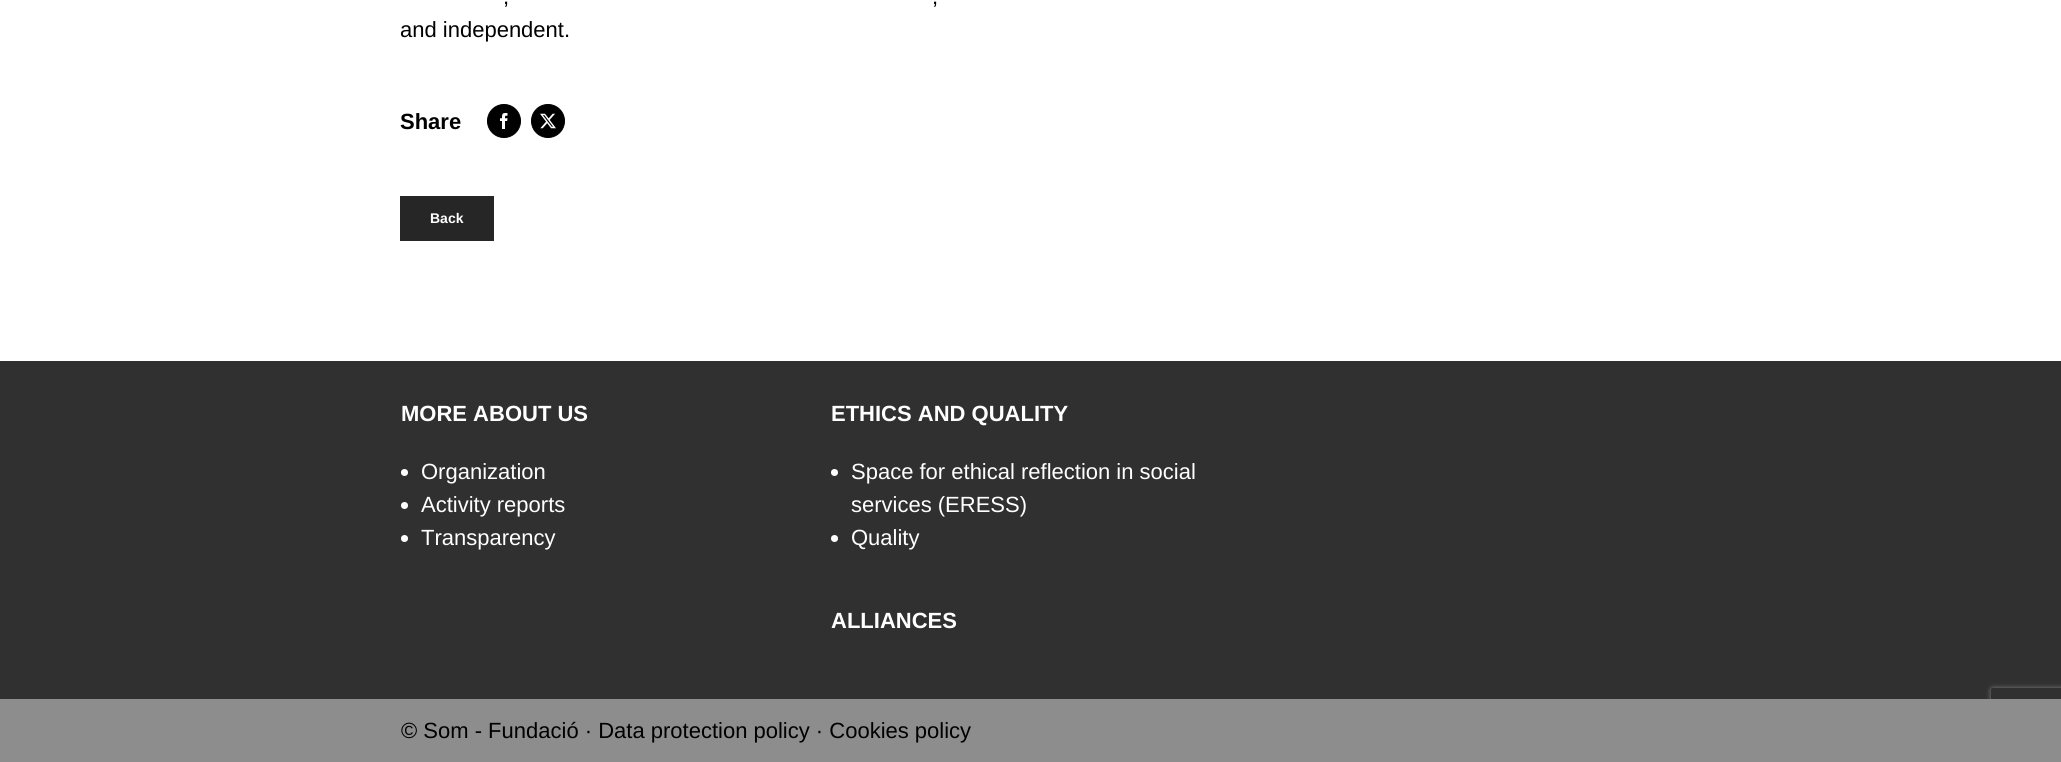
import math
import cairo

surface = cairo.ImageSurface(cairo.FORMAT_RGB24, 2061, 762)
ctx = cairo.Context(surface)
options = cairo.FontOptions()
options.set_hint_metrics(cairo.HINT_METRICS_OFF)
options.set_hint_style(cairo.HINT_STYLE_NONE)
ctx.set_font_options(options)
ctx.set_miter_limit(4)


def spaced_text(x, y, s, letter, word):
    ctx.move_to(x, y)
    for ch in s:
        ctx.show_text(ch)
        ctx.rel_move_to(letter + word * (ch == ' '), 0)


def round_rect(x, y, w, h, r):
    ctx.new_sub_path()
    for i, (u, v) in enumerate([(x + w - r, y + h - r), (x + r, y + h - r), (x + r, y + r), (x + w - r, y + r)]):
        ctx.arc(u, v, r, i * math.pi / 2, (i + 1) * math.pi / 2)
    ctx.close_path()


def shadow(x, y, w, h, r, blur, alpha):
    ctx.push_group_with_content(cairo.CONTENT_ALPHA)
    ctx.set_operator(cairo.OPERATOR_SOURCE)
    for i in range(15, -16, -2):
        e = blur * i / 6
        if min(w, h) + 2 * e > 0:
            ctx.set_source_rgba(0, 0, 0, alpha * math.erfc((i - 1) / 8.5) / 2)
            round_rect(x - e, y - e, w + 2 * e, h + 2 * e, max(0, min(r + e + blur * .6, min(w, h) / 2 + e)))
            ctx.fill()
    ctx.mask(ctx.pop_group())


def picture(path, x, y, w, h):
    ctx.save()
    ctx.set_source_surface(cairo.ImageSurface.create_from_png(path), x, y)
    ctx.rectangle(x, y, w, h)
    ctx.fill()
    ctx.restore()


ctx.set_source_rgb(1, 1, 1)
ctx.paint()
ctx.select_font_face("Liberation Sans")
ctx.set_font_size(22)
ctx.set_source_rgb(0, 0, 0)
spaced_text(503, 4, ",", 0, 1)
spaced_text(932, 4, ",", 0, 1)
ctx.move_to(400, 37)
ctx.show_text("and independent.")
ctx.select_font_face("Liberation Sans", cairo.FONT_SLANT_NORMAL, cairo.FONT_WEIGHT_BOLD)
ctx.move_to(400, 129)
ctx.show_text("Share")
ctx.new_path()
ctx.arc(504, 121, 16.5, 0, 2 * math.pi)
ctx.fill_preserve()
ctx.set_line_width(1)
ctx.stroke()
picture("img1.png", 500, 113, 8, 16)
ctx.arc(548, 121, 16.5, 0, 2 * math.pi)
ctx.fill_preserve()
ctx.stroke()
picture("img2.png", 540, 113, 16, 16)
ctx.set_source_rgb(0.149, 0.149, 0.149)
ctx.rectangle(400, 196, 94, 45)
ctx.fill()
ctx.set_font_size(14)
ctx.set_source_rgb(1, 1, 1)
ctx.move_to(430, 223)
ctx.show_text("Back")
ctx.set_source_rgb(0.188, 0.188, 0.188)
ctx.rectangle(0, 361, 2061, 338)
ctx.fill()
ctx.set_font_size(22)
ctx.set_source_rgb(1, 1, 1)
ctx.move_to(401, 421)
ctx.show_text("MORE ABOUT US")
ctx.new_path()
ctx.arc(404.5, 472.5, 3.5, 0, 2 * math.pi)
ctx.fill()
ctx.select_font_face("Liberation Sans")
ctx.move_to(421, 479)
ctx.show_text("Organization")
ctx.new_path()
ctx.arc(404.5, 505.5, 3.5, 0, 2 * math.pi)
ctx.fill()
ctx.move_to(421, 512)
ctx.show_text("Activity reports")
ctx.new_path()
ctx.arc(404.5, 538.5, 3.5, 0, 2 * math.pi)
ctx.fill()
ctx.move_to(421, 545)
ctx.show_text("Transparency")
ctx.select_font_face("Liberation Sans", cairo.FONT_SLANT_NORMAL, cairo.FONT_WEIGHT_BOLD)
ctx.move_to(831, 421)
ctx.show_text("ETHICS AND QUALITY")
ctx.new_path()
ctx.arc(834.5, 472.5, 3.5, 0, 2 * math.pi)
ctx.fill()
ctx.select_font_face("Liberation Sans")
ctx.move_to(851, 479)
ctx.show_text("Space for ethical reflection in social")
ctx.move_to(851, 512)
ctx.show_text("services (ERESS)")
ctx.new_path()
ctx.arc(834.5, 538.5, 3.5, 0, 2 * math.pi)
ctx.fill()
ctx.move_to(851, 545)
ctx.show_text("Quality")
ctx.select_font_face("Liberation Sans", cairo.FONT_SLANT_NORMAL, cairo.FONT_WEIGHT_BOLD)
ctx.move_to(831, 628)
ctx.show_text("ALLIANCES")
ctx.save()
ctx.set_fill_rule(cairo.FILL_RULE_EVEN_ODD)
ctx.new_path()
ctx.move_to(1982, 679)
ctx.line_to(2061, 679)
ctx.line_to(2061, 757)
ctx.line_to(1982, 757)
ctx.close_path()
ctx.move_to(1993, 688)
ctx.line_to(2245, 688)
ctx.curve_to(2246, 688, 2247, 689, 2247, 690)
ctx.line_to(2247, 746)
ctx.curve_to(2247, 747, 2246, 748, 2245, 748)
ctx.line_to(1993, 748)
ctx.curve_to(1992, 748, 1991, 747, 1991, 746)
ctx.line_to(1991, 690)
ctx.curve_to(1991, 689, 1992, 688, 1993, 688)
ctx.close_path()
ctx.clip()
ctx.set_source_rgb(0.502, 0.502, 0.502)
shadow(1991, 688, 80, 60, 2, 2.5, 1)
ctx.restore()
ctx.set_source_rgb(0.553, 0.553, 0.553)
ctx.rectangle(0, 699, 2061, 63)
ctx.fill()
ctx.select_font_face("Liberation Sans")
ctx.set_source_rgb(0, 0, 0)
ctx.move_to(401, 738)
ctx.show_text("© Som - Fundació · Data protection policy · Cookies policy")
surface.write_to_png("page.png")
